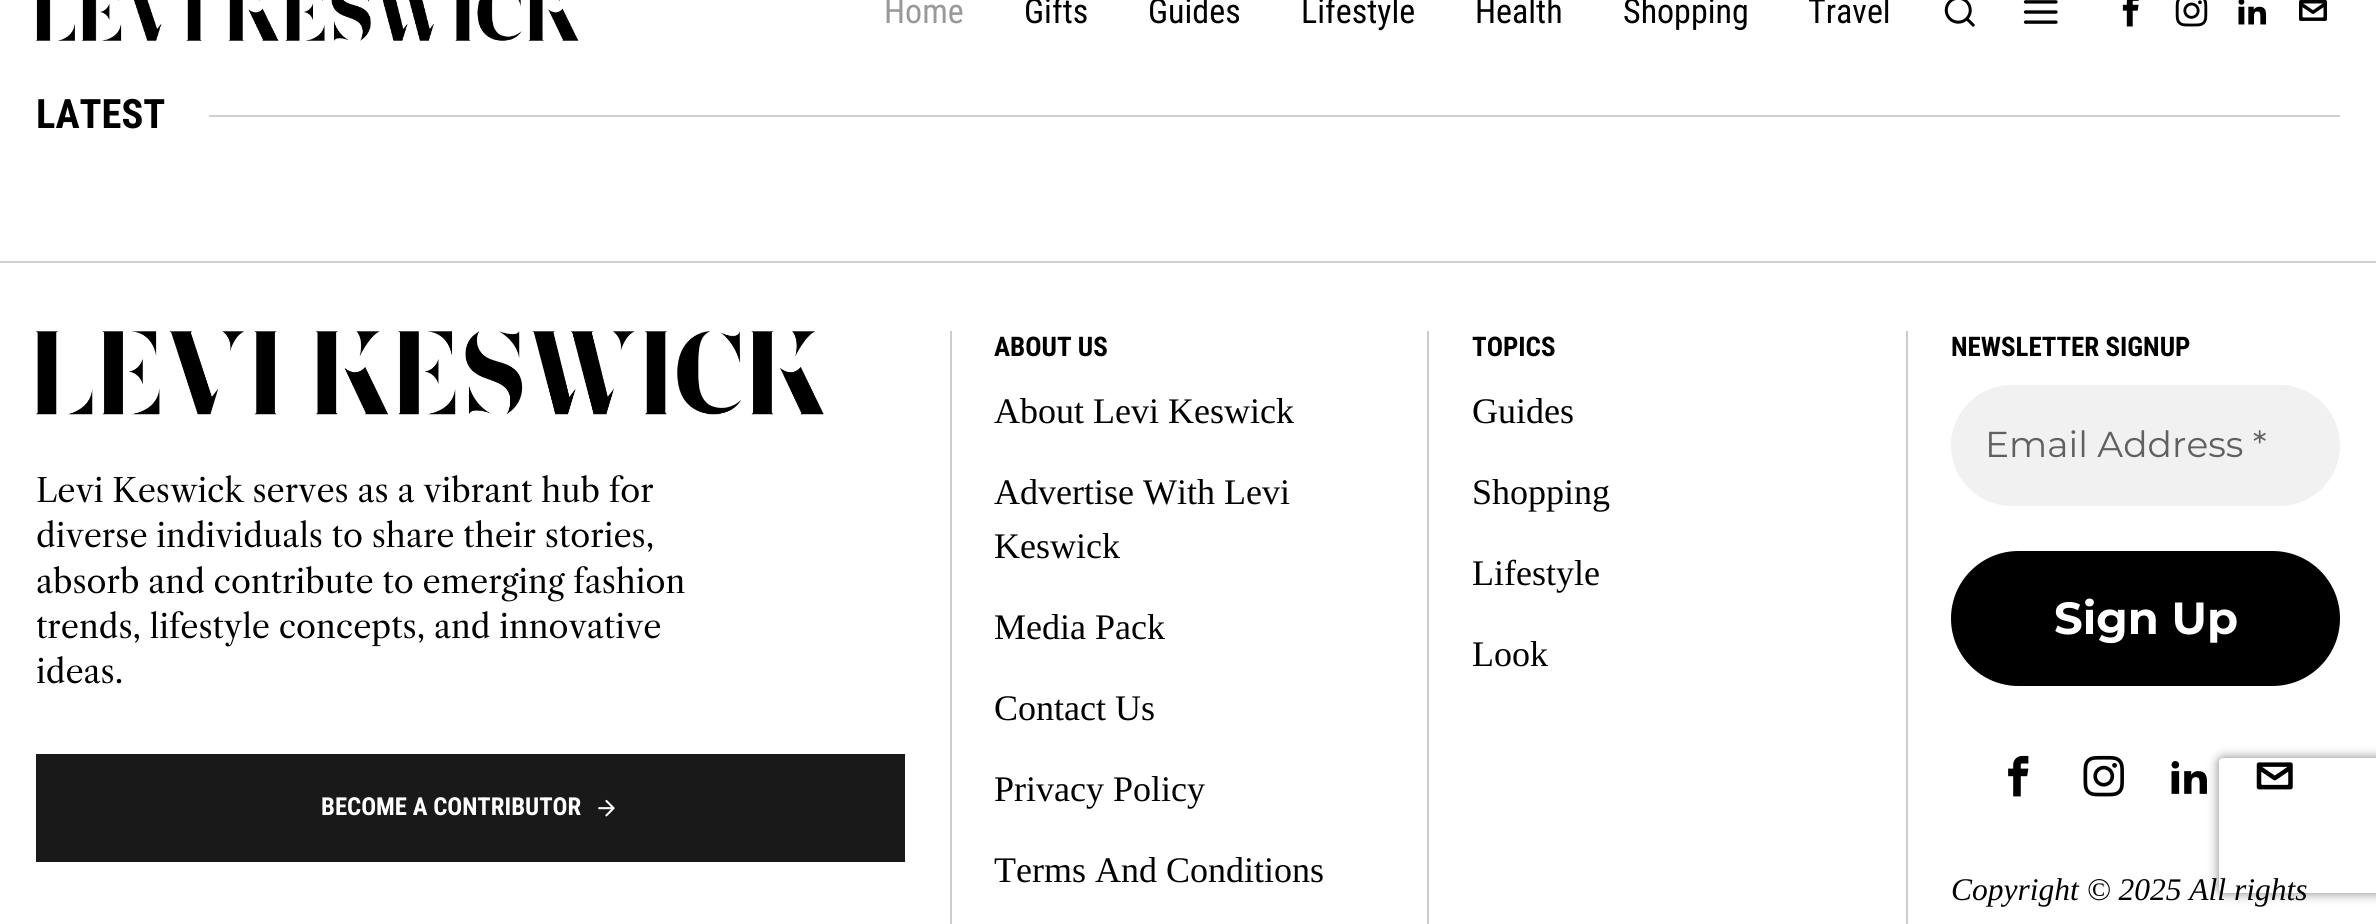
import math
import cairo

surface = cairo.ImageSurface(cairo.FORMAT_RGB24, 2376, 924)
ctx = cairo.Context(surface)
options = cairo.FontOptions()
options.set_hint_metrics(cairo.HINT_METRICS_OFF)
options.set_hint_style(cairo.HINT_STYLE_NONE)
ctx.set_font_options(options)
ctx.set_miter_limit(4)


def round_rect(x, y, w, h, r):
    ctx.new_sub_path()
    for i, (u, v) in enumerate([(x + w - r, y + h - r), (x + r, y + h - r), (x + r, y + r), (x + w - r, y + r)]):
        ctx.arc(u, v, r, i * math.pi / 2, (i + 1) * math.pi / 2)
    ctx.close_path()


def shadow(x, y, w, h, r, blur, alpha):
    ctx.push_group_with_content(cairo.CONTENT_ALPHA)
    ctx.set_operator(cairo.OPERATOR_SOURCE)
    for i in range(15, -16, -2):
        e = blur * i / 6
        if min(w, h) + 2 * e > 0:
            ctx.set_source_rgba(0, 0, 0, alpha * math.erfc((i - 1) / 8.5) / 2)
            round_rect(x - e, y - e, w + 2 * e, h + 2 * e, max(0, min(r + e + blur * .6, min(w, h) / 2 + e)))
            ctx.fill()
    ctx.mask(ctx.pop_group())


def picture(path, x, y, w, h):
    ctx.save()
    ctx.set_source_surface(cairo.ImageSurface.create_from_png(path), x, y)
    ctx.rectangle(x, y, w, h)
    ctx.fill()
    ctx.restore()


ctx.set_source_rgb(1, 1, 1)
ctx.paint()
picture("img1.png", 36, 0, 543, 41)
ctx.select_font_face("Roboto Condensed")
ctx.set_font_size(34)
ctx.set_source_rgb(0.6, 0.6, 0.6)
ctx.move_to(884, 23)
ctx.show_text("Home")
ctx.set_source_rgb(0, 0, 0)
ctx.move_to(1024, 23)
ctx.show_text("Gifts")
ctx.move_to(1148, 23)
ctx.show_text("Guides")
ctx.move_to(1301, 23)
ctx.show_text("Lifestyle")
ctx.move_to(1475, 23)
ctx.show_text("Health")
ctx.move_to(1623, 23)
ctx.show_text("Shopping")
ctx.move_to(1808, 23)
ctx.show_text("Travel")
picture("img2.png", 1944, 0, 31, 27)
picture("img3.png", 2023, 0, 35, 24)
picture("img4.png", 2122, 0, 17, 27)
picture("img5.png", 2175, 0, 33, 27)
picture("img6.png", 2238, 0, 29, 25)
picture("img7.png", 2299, 0, 28, 21)
ctx.select_font_face("Roboto Condensed", cairo.FONT_SLANT_NORMAL, cairo.FONT_WEIGHT_BOLD)
ctx.set_font_size(40.5)
ctx.move_to(36, 128)
ctx.show_text("LATEST")
ctx.set_source_rgb(0.816, 0.816, 0.816)
ctx.rectangle(209, 115, 2131, 2)
ctx.fill()
ctx.rectangle(0, 261, 2376, 2)
ctx.fill()
picture("img8.png", 36, 331, 788, 84)
ctx.select_font_face("Libre Caslon Text")
ctx.set_font_size(32.4)
ctx.set_source_rgb(0, 0, 0)
ctx.move_to(36, 502)
ctx.show_text("Levi Keswick serves as a vibrant hub for")
ctx.move_to(36, 547)
ctx.show_text("diverse individuals to share their stories,")
ctx.move_to(36, 593)
ctx.show_text("absorb and contribute to emerging fashion")
ctx.move_to(36, 638)
ctx.show_text("trends, lifestyle concepts, and innovative")
ctx.move_to(36, 683)
ctx.show_text("ideas.")
ctx.set_source_rgb(0.098, 0.098, 0.098)
ctx.rectangle(36, 754, 869, 108)
ctx.fill()
ctx.select_font_face("Roboto Condensed", cairo.FONT_SLANT_NORMAL, cairo.FONT_WEIGHT_BOLD)
ctx.set_font_size(24.75)
ctx.set_source_rgb(1, 1, 1)
ctx.move_to(321, 815)
ctx.show_text("BECOME A CONTRIBUTOR")
picture("img9.png", 598, 799, 17, 18)
ctx.set_source_rgb(0.8, 0.8, 0.8)
ctx.rectangle(950, 331, 2, 593)
ctx.fill()
ctx.set_font_size(27)
ctx.set_source_rgb(0, 0, 0)
ctx.move_to(994, 356)
ctx.show_text("ABOUT US")
ctx.select_font_face("Liberation Serif")
ctx.set_font_size(36)
ctx.move_to(994, 423)
ctx.show_text("About Levi Keswick")
ctx.move_to(994, 504)
ctx.show_text("Advertise With Levi")
ctx.move_to(994, 558)
ctx.show_text("Keswick")
ctx.move_to(994, 639)
ctx.show_text("Media Pack")
ctx.move_to(994, 720)
ctx.show_text("Contact Us")
ctx.move_to(994, 801)
ctx.show_text("Privacy Policy")
ctx.move_to(994, 882)
ctx.show_text("Terms And Conditions")
ctx.set_source_rgb(0.8, 0.8, 0.8)
ctx.rectangle(1427, 331, 2, 593)
ctx.fill()
ctx.select_font_face("Roboto Condensed", cairo.FONT_SLANT_NORMAL, cairo.FONT_WEIGHT_BOLD)
ctx.set_font_size(27)
ctx.set_source_rgb(0, 0, 0)
ctx.move_to(1472, 356)
ctx.show_text("TOPICS")
ctx.select_font_face("Liberation Serif")
ctx.set_font_size(36)
ctx.move_to(1472, 423)
ctx.show_text("Guides")
ctx.move_to(1472, 504)
ctx.show_text("Shopping")
ctx.move_to(1472, 585)
ctx.show_text("Lifestyle")
ctx.move_to(1472, 666)
ctx.show_text("Look")
ctx.set_source_rgb(0.8, 0.8, 0.8)
ctx.rectangle(1906, 331, 2, 593)
ctx.fill()
ctx.select_font_face("Roboto Condensed", cairo.FONT_SLANT_NORMAL, cairo.FONT_WEIGHT_BOLD)
ctx.set_font_size(27)
ctx.set_source_rgb(0, 0, 0)
ctx.move_to(1951, 356)
ctx.show_text("NEWSLETTER SIGNUP")
ctx.set_source_rgb(0.945, 0.945, 0.945)
round_rect(1951, 385, 389, 121, 60.5)
ctx.fill()
ctx.select_font_face("Montserrat")
ctx.set_font_size(36)
ctx.set_source_rgb(0.376, 0.376, 0.376)
ctx.move_to(1985, 457)
ctx.show_text("Email Address *")
ctx.set_source_rgb(0, 0, 0)
round_rect(1951, 551, 389, 135, 67.5)
ctx.fill()
ctx.select_font_face("Montserrat", cairo.FONT_SLANT_NORMAL, cairo.FONT_WEIGHT_BOLD)
ctx.set_font_size(45)
ctx.set_source_rgb(1, 1, 1)
ctx.move_to(2054, 634)
ctx.show_text("Sign Up")
ctx.save()
ctx.set_fill_rule(cairo.FILL_RULE_EVEN_ODD)
ctx.new_path()
ctx.move_to(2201, 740)
ctx.line_to(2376, 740)
ctx.line_to(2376, 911)
ctx.line_to(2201, 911)
ctx.close_path()
ctx.move_to(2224, 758)
ctx.line_to(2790, 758)
ctx.curve_to(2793, 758, 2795, 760, 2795, 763)
ctx.line_to(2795, 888)
ctx.curve_to(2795, 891, 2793, 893, 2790, 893)
ctx.line_to(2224, 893)
ctx.curve_to(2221, 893, 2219, 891, 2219, 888)
ctx.line_to(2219, 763)
ctx.curve_to(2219, 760, 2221, 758, 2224, 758)
ctx.close_path()
ctx.clip()
ctx.set_source_rgb(0.502, 0.502, 0.502)
shadow(2219, 758, 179, 135, 5, 5.5, 1)
ctx.restore()
picture("img10.png", 2008, 755, 21, 42)
picture("img11.png", 2083, 755, 41, 42)
picture("img12.png", 2171, 761, 36, 33)
picture("img13.png", 2256, 762, 37, 28)
ctx.select_font_face("Liberation Serif", cairo.FONT_SLANT_ITALIC)
ctx.set_font_size(31.5)
ctx.set_source_rgb(0, 0, 0)
ctx.move_to(1951, 900)
ctx.show_text("Copyright © 2025 All rights")
surface.write_to_png("page.png")
